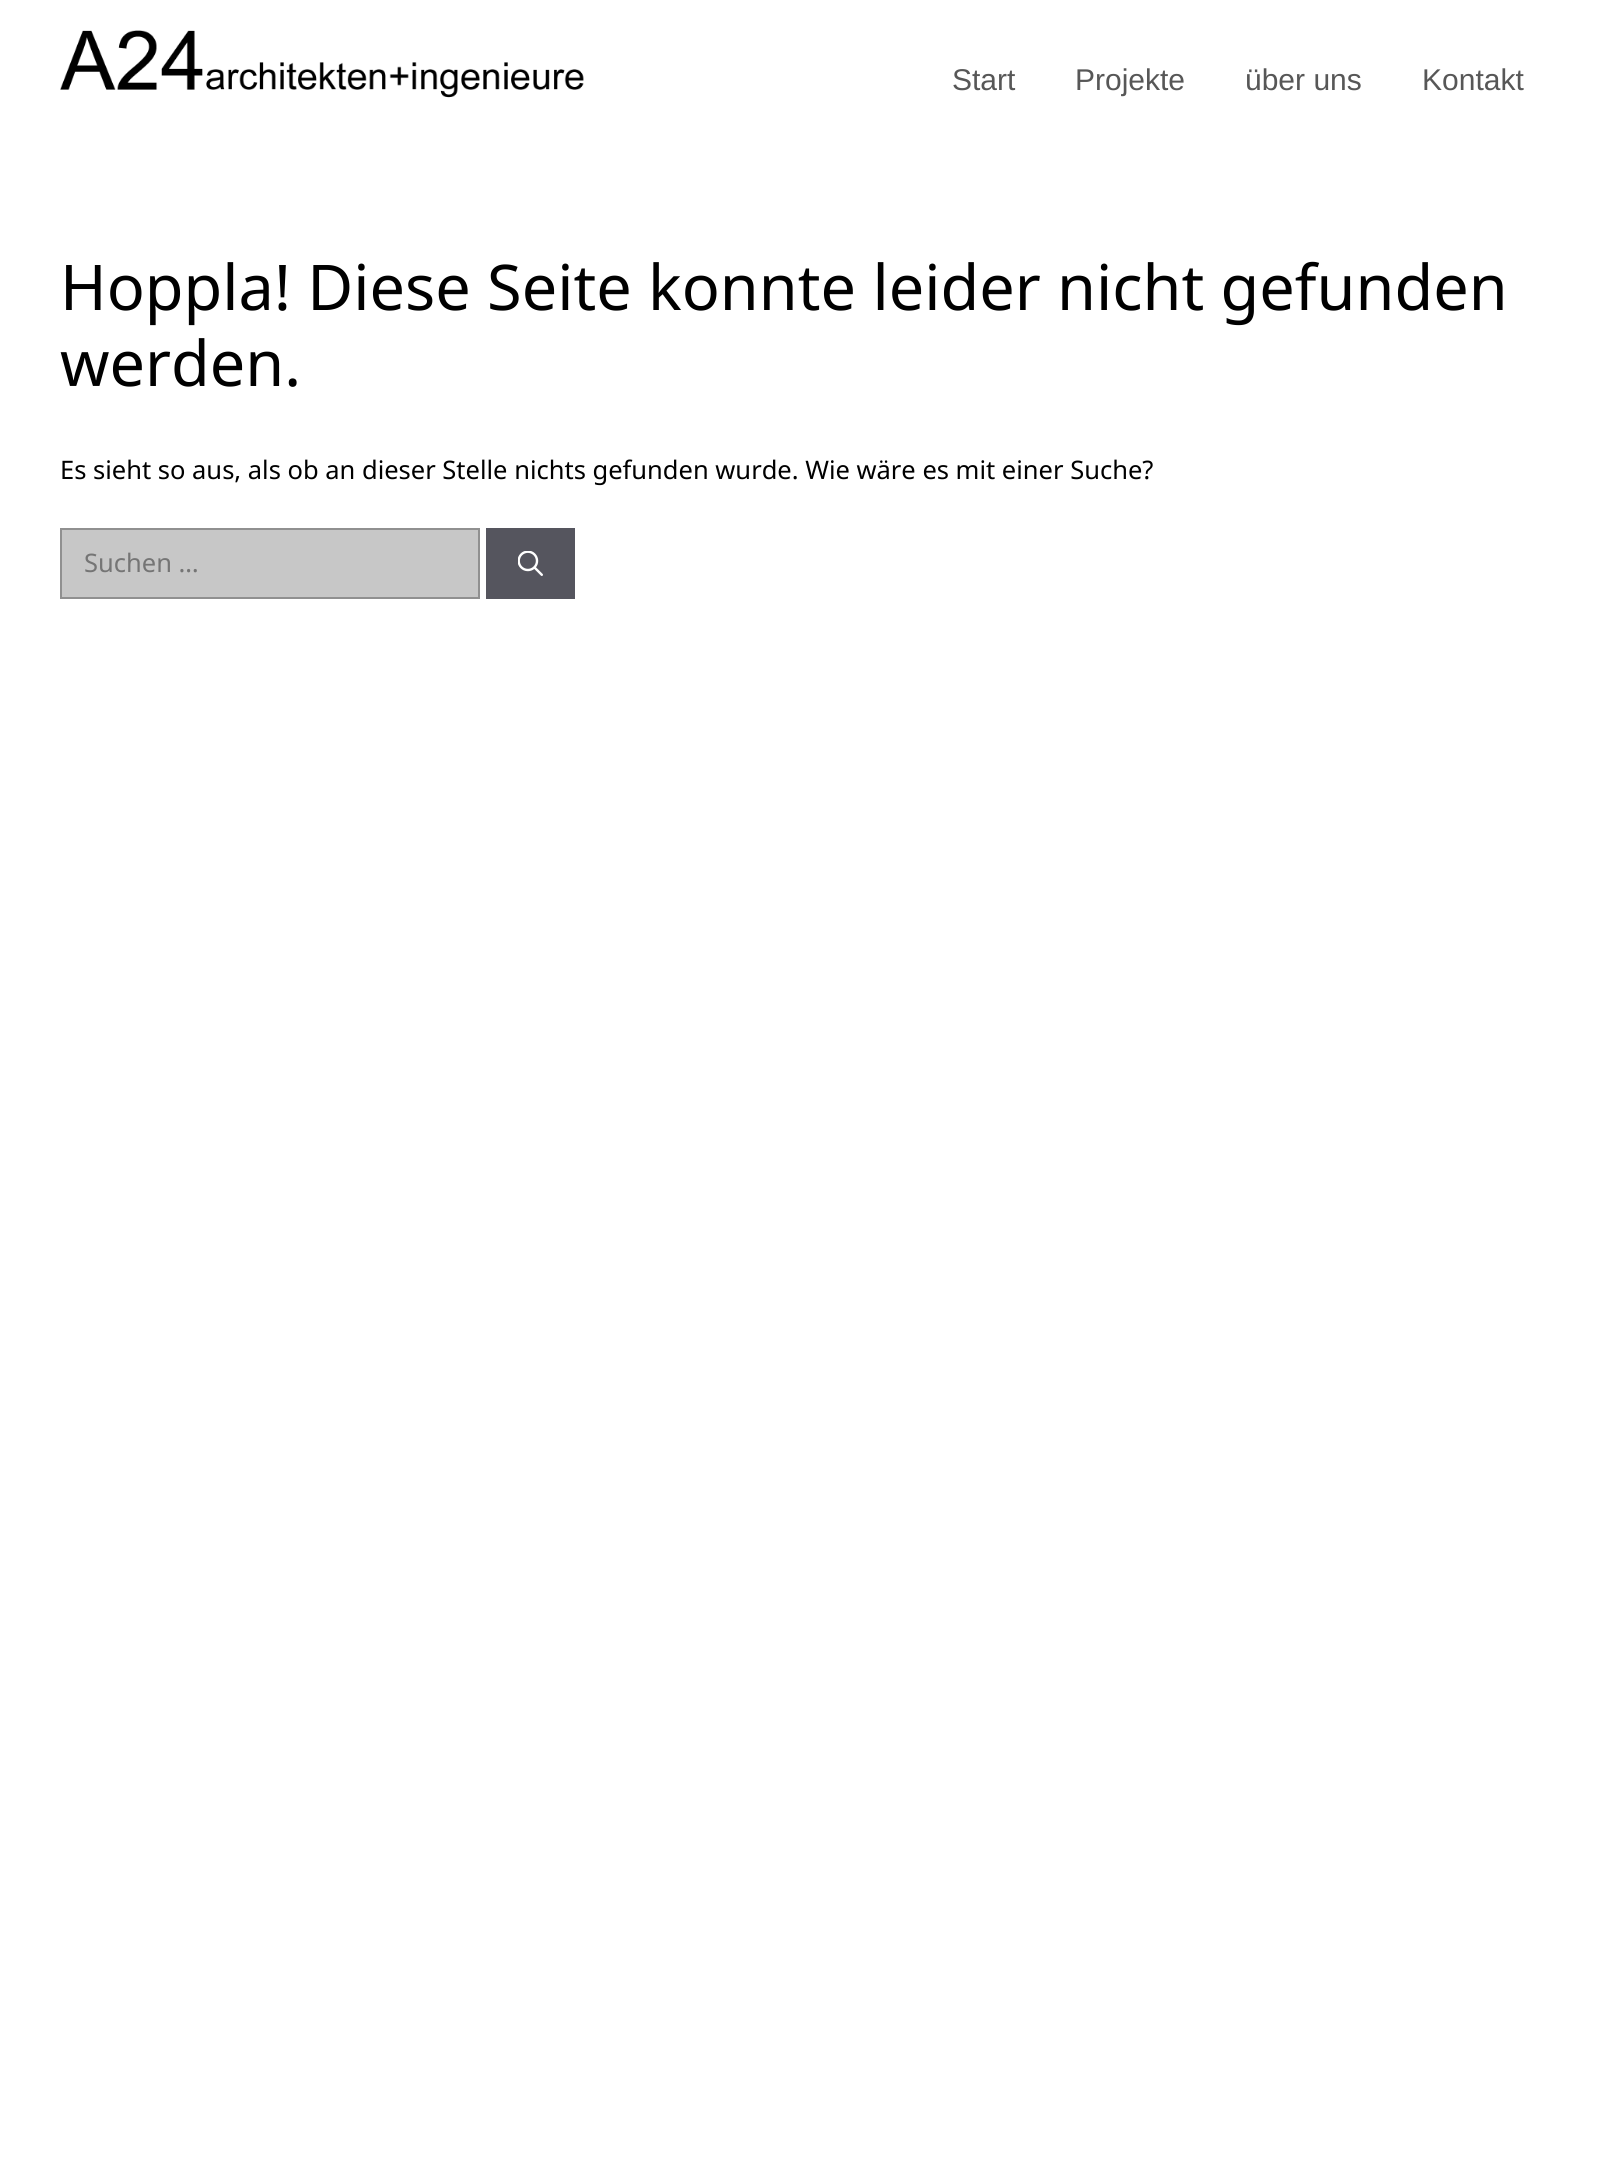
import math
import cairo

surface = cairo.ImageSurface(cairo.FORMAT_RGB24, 1613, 2174)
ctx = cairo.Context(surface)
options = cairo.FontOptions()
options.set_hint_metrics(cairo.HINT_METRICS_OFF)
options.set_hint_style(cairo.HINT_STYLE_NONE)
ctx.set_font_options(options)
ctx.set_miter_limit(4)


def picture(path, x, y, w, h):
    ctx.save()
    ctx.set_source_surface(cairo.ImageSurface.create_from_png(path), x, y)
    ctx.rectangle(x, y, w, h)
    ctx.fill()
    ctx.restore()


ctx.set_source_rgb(1, 1, 1)
ctx.paint()
picture("img1.png", 60, 30, 524, 68)
ctx.select_font_face("Liberation Sans")
ctx.set_font_size(30)
ctx.set_source_rgb(0.341, 0.341, 0.341)
ctx.move_to(952, 90)
ctx.show_text("Start")
ctx.move_to(1075, 90)
ctx.show_text("Projekte")
ctx.move_to(1245, 90)
ctx.show_text("über uns")
ctx.move_to(1422, 90)
ctx.show_text("Kontakt")
ctx.select_font_face("Noto Sans")
ctx.set_font_size(63)
ctx.set_source_rgb(0, 0, 0)
ctx.move_to(60, 310)
ctx.show_text("Hoppla! Diese Seite konnte leider nicht gefunden")
ctx.move_to(60, 386)
ctx.show_text("werden.")
ctx.set_font_size(25.5)
ctx.move_to(60, 479)
ctx.show_text("Es sieht so aus, als ob an dieser Stelle nichts gefunden wurde. Wie wäre es mit einer Suche?")
ctx.set_source_rgb(0.78, 0.78, 0.78)
ctx.rectangle(61, 529, 418, 69)
ctx.fill_preserve()
ctx.set_source_rgb(0.565, 0.565, 0.565)
ctx.stroke()
ctx.set_source_rgb(0.459, 0.459, 0.459)
ctx.move_to(84, 572)
ctx.show_text("Suchen …")
ctx.set_source_rgb(0.333, 0.333, 0.369)
ctx.rectangle(486, 528, 89, 71)
ctx.fill()
picture("img2.png", 518, 551, 25, 25)
surface.write_to_png("page.png")
